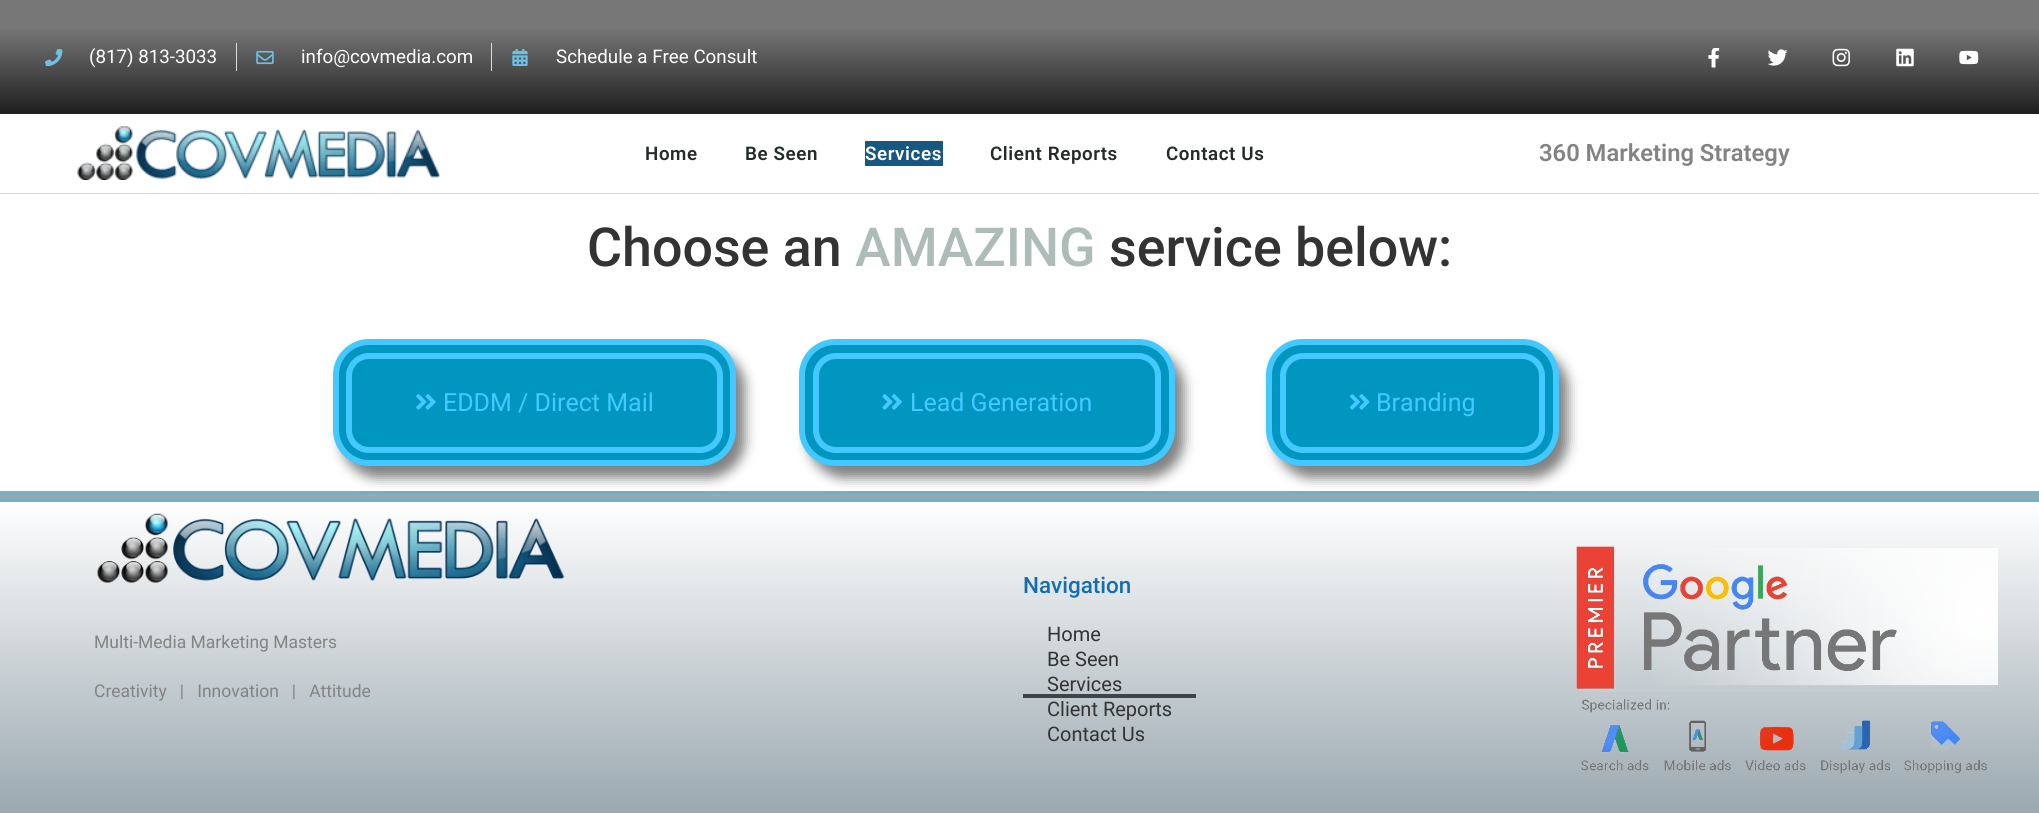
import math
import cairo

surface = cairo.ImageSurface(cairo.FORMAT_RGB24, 2039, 813)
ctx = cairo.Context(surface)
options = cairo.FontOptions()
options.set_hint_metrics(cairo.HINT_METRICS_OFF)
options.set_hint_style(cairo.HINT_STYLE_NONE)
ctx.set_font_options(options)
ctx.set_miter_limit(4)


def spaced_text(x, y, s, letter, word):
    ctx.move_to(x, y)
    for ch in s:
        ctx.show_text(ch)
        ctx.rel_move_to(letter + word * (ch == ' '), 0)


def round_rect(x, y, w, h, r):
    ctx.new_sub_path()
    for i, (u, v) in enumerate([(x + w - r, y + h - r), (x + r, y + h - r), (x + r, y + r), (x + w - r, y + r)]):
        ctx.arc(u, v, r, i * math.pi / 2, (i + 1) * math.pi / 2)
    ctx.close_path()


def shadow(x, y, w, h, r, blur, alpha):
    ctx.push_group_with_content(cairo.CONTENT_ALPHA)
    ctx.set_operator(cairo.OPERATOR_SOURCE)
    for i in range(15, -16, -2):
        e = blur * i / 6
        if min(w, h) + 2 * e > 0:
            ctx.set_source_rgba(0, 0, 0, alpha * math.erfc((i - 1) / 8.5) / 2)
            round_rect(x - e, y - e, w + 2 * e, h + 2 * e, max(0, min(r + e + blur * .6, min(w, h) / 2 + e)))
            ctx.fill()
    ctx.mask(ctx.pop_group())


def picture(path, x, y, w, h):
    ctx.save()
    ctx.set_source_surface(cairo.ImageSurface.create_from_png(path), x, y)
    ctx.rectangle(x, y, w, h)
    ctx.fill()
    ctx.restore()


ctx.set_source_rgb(1, 1, 1)
ctx.paint()
gradient = cairo.LinearGradient(1020, 0, 1020, 114)
gradient.add_color_stop_rgba(0.24, 0.467, 0.467, 0.467, 1)
gradient.add_color_stop_rgba(1, 0.118, 0.118, 0.118, 1)
ctx.set_source(gradient)
ctx.rectangle(0, 0, 2039, 114)
ctx.fill()
picture("img1.png", 45, 49, 18, 17)
ctx.select_font_face("Roboto")
ctx.set_font_size(18.75)
ctx.set_source_rgb(1, 1, 1)
ctx.move_to(89, 63)
ctx.show_text("(817) 813-3033")
ctx.set_source_rgb(0.867, 0.867, 0.867)
ctx.rectangle(236, 43, 1, 28)
ctx.fill()
picture("img2.png", 256, 50, 18, 15)
ctx.set_source_rgb(1, 1, 1)
ctx.move_to(301, 63)
ctx.show_text("info@covmedia.com")
ctx.set_source_rgb(0.867, 0.867, 0.867)
ctx.rectangle(491, 43, 1, 28)
ctx.fill()
picture("img3.png", 512, 49, 16, 17)
ctx.set_source_rgb(1, 1, 1)
ctx.move_to(556, 63)
ctx.show_text("Schedule a Free Consult")
picture("img4.png", 1708, 48, 12, 20)
picture("img5.png", 1768, 49, 20, 17)
picture("img6.png", 1832, 48, 18, 19)
picture("img7.png", 1896, 48, 18, 19)
picture("img8.png", 1959, 50, 20, 15)
ctx.set_source_rgb(0.847, 0.847, 0.847)
ctx.rectangle(0, 193, 2039, 1)
ctx.fill()
picture("img9.png", 77, 126, 364, 54)
ctx.select_font_face("Roboto SemiBold")
ctx.set_source_rgb(0.149, 0.165, 0.169)
spaced_text(645, 160, "Home", 0.6, 0)
spaced_text(745, 160, "Be Seen", 0.6, 0)
ctx.set_source_rgb(0.094, 0.341, 0.498)
ctx.rectangle(865, 141, 78, 25)
ctx.fill()
ctx.set_source_rgb(1, 1, 1)
spaced_text(865, 160, "Services", 0.6, 0)
ctx.set_source_rgb(0.149, 0.165, 0.169)
spaced_text(990, 160, "Client Reports", 0.6, 0)
spaced_text(1166, 160, "Contact Us", 0.6, 0)
ctx.set_font_size(23.75)
ctx.set_source_rgb(0.514, 0.514, 0.514)
ctx.move_to(1539, 161)
ctx.show_text("360 Marketing Strategy")
ctx.select_font_face("Roboto Medium")
ctx.set_font_size(53.75)
ctx.set_source_rgb(0.2, 0.2, 0.2)
ctx.move_to(587, 266)
ctx.show_text("Choose an")
ctx.set_source_rgb(0.682, 0.737, 0.725)
ctx.move_to(855, 266)
ctx.show_text("AMAZING")
ctx.set_source_rgb(0.2, 0.2, 0.2)
ctx.move_to(1109, 266)
ctx.show_text("service below:")
ctx.set_source_rgb(0, 0, 0)
shadow(341, 350, 404, 128, 36, 6, 0.5)
ctx.set_source_rgb(0.004, 0.588, 0.749)
round_rect(336, 342, 397, 121, 33)
ctx.fill_preserve()
ctx.set_source_rgb(0.263, 0.788, 1)
ctx.set_line_width(6)
ctx.stroke()
round_rect(349, 356, 371, 94, 20)
ctx.stroke()
picture("img10.png", 416, 394, 20, 16)
ctx.select_font_face("Roboto")
ctx.set_font_size(25)
ctx.move_to(443, 411)
ctx.show_text("EDDM / Direct Mail")
ctx.set_source_rgb(0, 0, 0)
shadow(808, 350, 376, 128, 36, 6, 0.5)
ctx.set_source_rgb(0.004, 0.588, 0.749)
round_rect(802, 342, 370, 121, 33)
ctx.fill_preserve()
ctx.set_source_rgb(0.263, 0.788, 1)
ctx.stroke()
round_rect(816, 356, 342, 94, 20)
ctx.stroke()
picture("img11.png", 882, 394, 20, 16)
ctx.move_to(910, 411)
ctx.show_text("Lead Generation")
ctx.set_source_rgb(0, 0, 0)
shadow(1275, 350, 293, 128, 36, 6, 0.5)
ctx.set_source_rgb(0.004, 0.588, 0.749)
round_rect(1269, 342, 287, 121, 33)
ctx.fill_preserve()
ctx.set_source_rgb(0.263, 0.788, 1)
ctx.stroke()
round_rect(1283, 356, 259, 94, 20)
ctx.stroke()
picture("img12.png", 1350, 394, 20, 16)
ctx.move_to(1376, 411)
ctx.show_text("Branding")
gradient = cairo.LinearGradient(1020, 181, 1020, 501)
gradient.add_color_stop_rgba(0, 1, 1, 1, 1)
gradient.add_color_stop_rgba(1, 0.596, 0.651, 0.682, 1)
ctx.set_source(gradient)
ctx.rectangle(0, 495, 2039, 3)
ctx.fill()
gradient = cairo.LinearGradient(1020, 501, 1020, 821)
gradient.add_color_stop_rgba(0, 1, 1, 1, 1)
gradient.add_color_stop_rgba(1, 0.596, 0.651, 0.682, 1)
ctx.set_source(gradient)
ctx.rectangle(0, 509, 2039, 304)
ctx.fill()
ctx.set_source_rgb(0.486, 0.682, 0.757)
ctx.rectangle(0, 491, 2039, 4)
ctx.fill()
ctx.rectangle(0, 498, 2039, 4)
ctx.fill()
picture("img13.png", 97, 513, 468, 70)
ctx.set_font_size(17.5)
ctx.set_source_rgb(0.514, 0.514, 0.514)
ctx.move_to(94, 648)
ctx.show_text("Multi-Media Marketing Masters")
ctx.move_to(94, 697)
ctx.show_text("Creativity   |   Innovation   |   Attitude")
ctx.select_font_face("Roboto Medium")
ctx.set_font_size(22.5)
ctx.set_source_rgb(0.075, 0.431, 0.686)
ctx.move_to(1023, 593)
ctx.show_text("Navigation")
ctx.select_font_face("Roboto")
ctx.set_font_size(20)
ctx.set_source_rgb(0.2, 0.2, 0.2)
ctx.move_to(1047, 641)
ctx.show_text("Home")
ctx.move_to(1047, 666)
ctx.show_text("Be Seen")
ctx.move_to(1047, 691)
ctx.show_text("Services")
ctx.set_source_rgb(0.247, 0.267, 0.294)
ctx.rectangle(1023, 694, 173, 4)
ctx.fill()
ctx.set_source_rgb(0.2, 0.2, 0.2)
ctx.move_to(1047, 716)
ctx.show_text("Client Reports")
ctx.move_to(1047, 741)
ctx.show_text("Contact Us")
picture("img14.png", 1576, 546, 422, 227)
surface.write_to_png("page.png")
